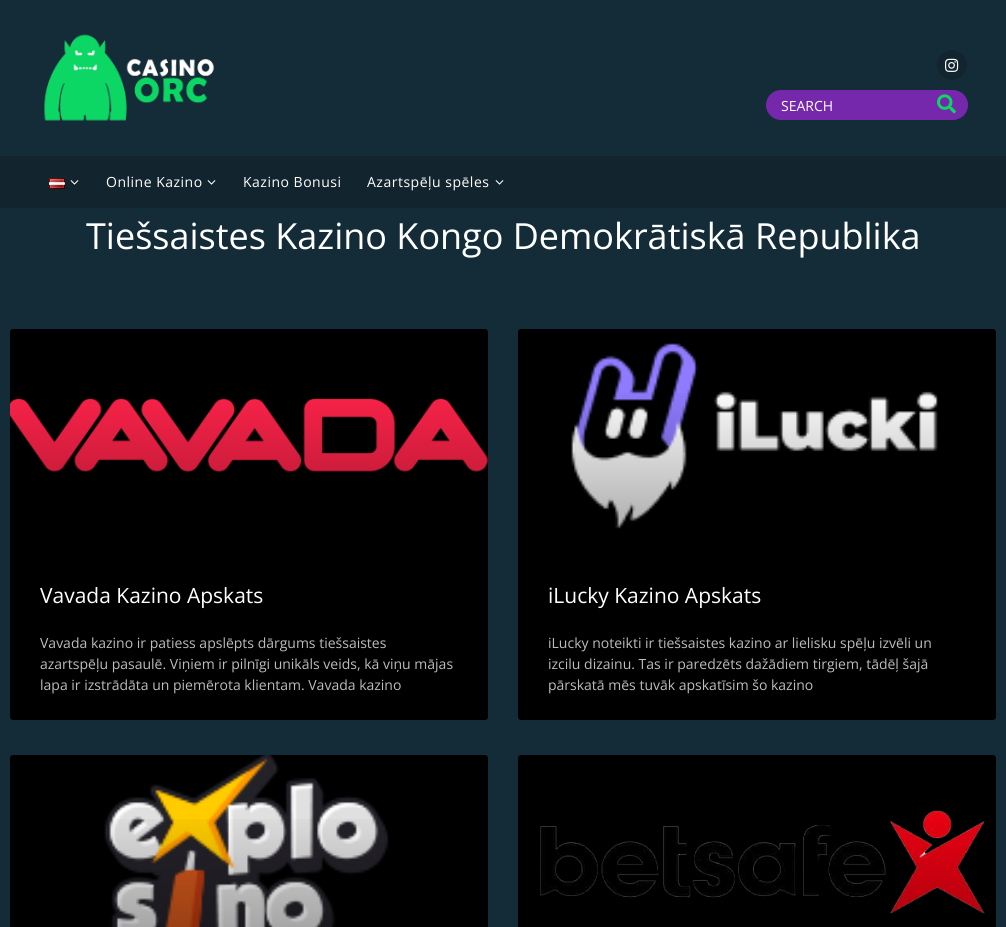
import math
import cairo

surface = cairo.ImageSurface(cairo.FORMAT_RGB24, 1006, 927)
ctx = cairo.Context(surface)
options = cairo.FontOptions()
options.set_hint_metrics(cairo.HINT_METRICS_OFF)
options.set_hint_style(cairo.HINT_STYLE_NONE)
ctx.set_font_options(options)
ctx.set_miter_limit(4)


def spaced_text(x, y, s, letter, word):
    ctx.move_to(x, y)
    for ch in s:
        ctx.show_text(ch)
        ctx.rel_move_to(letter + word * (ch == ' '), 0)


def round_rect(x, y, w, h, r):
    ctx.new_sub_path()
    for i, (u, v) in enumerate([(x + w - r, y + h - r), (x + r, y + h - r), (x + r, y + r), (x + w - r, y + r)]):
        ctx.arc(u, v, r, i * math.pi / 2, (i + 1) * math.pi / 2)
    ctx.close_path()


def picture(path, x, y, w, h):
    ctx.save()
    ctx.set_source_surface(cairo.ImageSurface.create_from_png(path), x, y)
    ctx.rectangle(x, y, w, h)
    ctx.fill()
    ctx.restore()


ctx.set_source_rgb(0.078, 0.173, 0.216)
ctx.paint()
picture("img1.png", 44, 34, 170, 87)
ctx.set_source_rgb(0.071, 0.141, 0.18)
ctx.arc(952, 65, 15, 0, 2 * math.pi)
ctx.fill()
picture("img2.png", 945, 58, 14, 14)
ctx.set_source_rgb(0.459, 0.157, 0.671)
round_rect(766, 90, 202, 30, 15)
ctx.fill()
ctx.select_font_face("Open Sans")
ctx.set_font_size(14)
ctx.set_source_rgb(1, 1, 1)
ctx.move_to(781, 111)
ctx.show_text("SEARCH")
picture("img3.png", 937, 94, 19, 20)
ctx.set_source_rgb(0.071, 0.141, 0.18)
ctx.rectangle(0, 156, 1006, 52)
ctx.fill()
picture("img4.png", 49, 178, 16, 11)
picture("img5.png", 70, 180, 9, 5)
ctx.set_source_rgb(1, 1, 1)
spaced_text(106, 187, "Online Kazino", 0.5, 0)
picture("img5.png", 207, 180, 9, 5)
spaced_text(243, 187, "Kazino Bonusi", 0.5, 0)
spaced_text(367, 187, "Azartspēļu spēles", 0.5, 0)
picture("img5.png", 495, 180, 9, 5)
ctx.set_font_size(36)
ctx.move_to(86, 249)
ctx.show_text("Tiešsaistes Kazino Kongo Demokrātiskā Republika")
ctx.set_source_rgb(0, 0, 0)
round_rect(10, 329, 478, 391, 3)
ctx.fill()
picture("img6.png", 10, 398, 478, 74)
gradient = cairo.LinearGradient(249, 544, 249, 329)
gradient.add_color_stop_rgba(0, 0, 0, 0, 0.35)
gradient.add_color_stop_rgba(0.75, 0, 0, 0, 0)
ctx.set_source(gradient)
ctx.rectangle(10, 399, 478, 73)
ctx.fill()
ctx.set_font_size(21)
ctx.set_source_rgb(1, 1, 1)
ctx.move_to(40, 603)
ctx.show_text("Vavada Kazino Apskats")
ctx.set_font_size(14)
ctx.set_source_rgb(0.737, 0.737, 0.737)
ctx.move_to(40, 648)
ctx.show_text("Vavada kazino ir patiess apslēpts dārgums tiešsaistes")
ctx.move_to(40, 669)
ctx.show_text("azartspēļu pasaulē. Viņiem ir pilnīgi unikāls veids, kā viņu mājas")
ctx.move_to(40, 690)
ctx.show_text("lapa ir izstrādāta un piemērota klientam. Vavada kazino")
ctx.set_source_rgb(0, 0, 0)
round_rect(518, 329, 478, 391, 3)
ctx.fill()
picture("img7.png", 571, 343, 367, 186)
gradient = cairo.LinearGradient(757, 544, 757, 329)
gradient.add_color_stop_rgba(0, 0, 0, 0, 0.35)
gradient.add_color_stop_rgba(0.75, 0, 0, 0, 0)
ctx.set_source(gradient)
ctx.rectangle(571, 393, 366, 136)
ctx.fill()
ctx.set_font_size(21)
ctx.set_source_rgb(1, 1, 1)
ctx.move_to(548, 603)
ctx.show_text("iLucky Kazino Apskats")
ctx.set_font_size(14)
ctx.set_source_rgb(0.737, 0.737, 0.737)
ctx.move_to(548, 648)
ctx.show_text("iLucky noteikti ir tiešsaistes kazino ar lielisku spēļu izvēli un")
ctx.move_to(548, 669)
ctx.show_text("izcilu dizainu. Tas ir paredzēts dažādiem tirgiem, tādēļ šajā")
ctx.move_to(548, 690)
ctx.show_text("pārskatā mēs tuvāk apskatīsim šo kazino")
ctx.set_source_rgb(0, 0, 0)
round_rect(10, 755, 478, 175, 3)
ctx.fill()
picture("img8.png", 104, 755, 285, 172)
gradient = cairo.LinearGradient(249, 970, 249, 755)
gradient.add_color_stop_rgba(0, 0, 0, 0, 0.35)
gradient.add_color_stop_rgba(0.75, 0, 0, 0, 0)
ctx.set_source(gradient)
ctx.rectangle(109, 819, 278, 108)
ctx.fill()
ctx.set_source_rgb(0, 0, 0)
round_rect(518, 755, 478, 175, 3)
ctx.fill()
picture("img9.png", 540, 810, 445, 104)
gradient = cairo.LinearGradient(757, 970, 757, 755)
gradient.add_color_stop_rgba(0, 0, 0, 0, 0.35)
gradient.add_color_stop_rgba(0.75, 0, 0, 0, 0)
ctx.set_source(gradient)
ctx.rectangle(540, 819, 445, 95)
ctx.fill()
surface.write_to_png("page.png")
